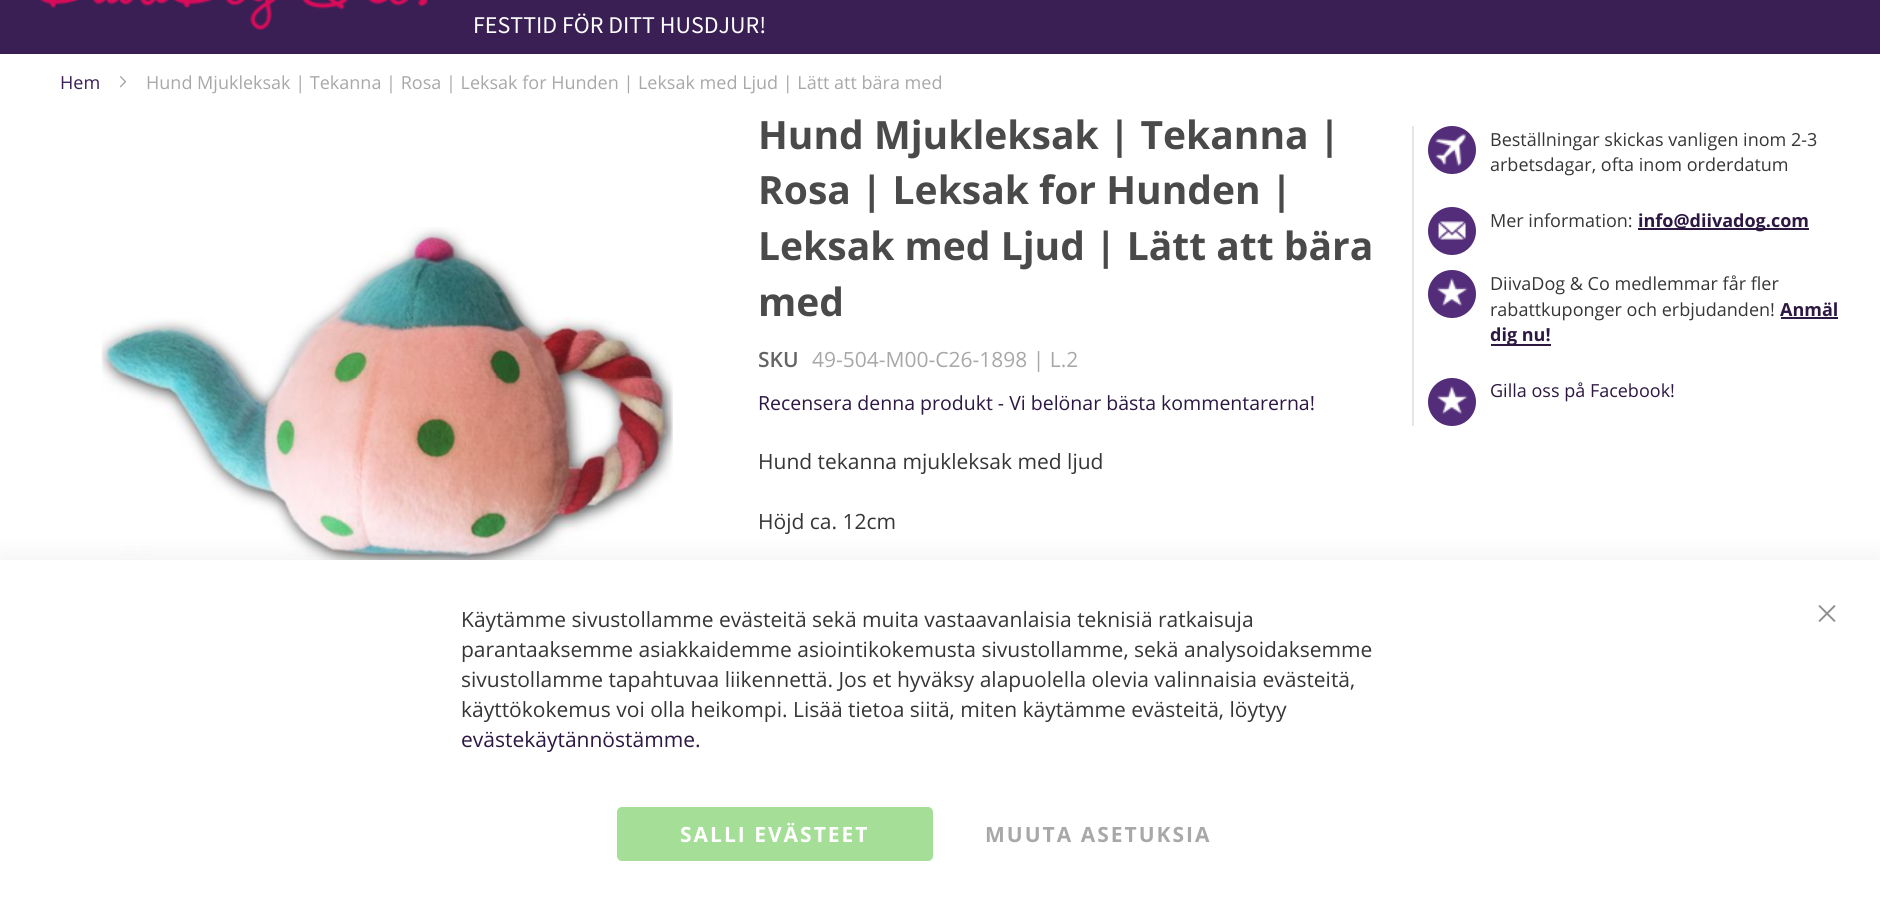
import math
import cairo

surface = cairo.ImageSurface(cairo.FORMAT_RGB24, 1880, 913)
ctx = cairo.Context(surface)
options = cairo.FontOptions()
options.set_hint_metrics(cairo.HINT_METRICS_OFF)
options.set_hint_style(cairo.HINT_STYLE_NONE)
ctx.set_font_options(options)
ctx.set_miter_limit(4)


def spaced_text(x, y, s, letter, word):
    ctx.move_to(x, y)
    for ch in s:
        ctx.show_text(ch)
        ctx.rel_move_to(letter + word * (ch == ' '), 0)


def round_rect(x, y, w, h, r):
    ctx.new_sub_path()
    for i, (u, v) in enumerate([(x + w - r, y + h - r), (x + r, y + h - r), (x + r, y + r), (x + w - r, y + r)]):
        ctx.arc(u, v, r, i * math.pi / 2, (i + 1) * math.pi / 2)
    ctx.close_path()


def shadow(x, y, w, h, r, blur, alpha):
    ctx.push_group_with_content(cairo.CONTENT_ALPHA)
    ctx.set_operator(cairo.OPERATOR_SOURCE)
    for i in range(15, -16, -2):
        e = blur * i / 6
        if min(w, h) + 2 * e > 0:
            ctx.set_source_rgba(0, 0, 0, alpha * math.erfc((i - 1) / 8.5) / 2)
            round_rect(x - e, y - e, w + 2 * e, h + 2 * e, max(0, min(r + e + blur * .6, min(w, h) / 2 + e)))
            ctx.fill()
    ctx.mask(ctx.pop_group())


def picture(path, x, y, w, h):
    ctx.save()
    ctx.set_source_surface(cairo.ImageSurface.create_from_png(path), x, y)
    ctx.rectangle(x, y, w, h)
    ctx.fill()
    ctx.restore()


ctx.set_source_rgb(1, 1, 1)
ctx.paint()
ctx.set_source_rgb(0.227, 0.122, 0.333)
ctx.rectangle(0, 0, 1880, 54)
ctx.fill()
picture("img1.png", 40, 0, 388, 30)
ctx.select_font_face("Source Sans Pro")
ctx.set_font_size(24)
ctx.set_source_rgb(1, 1, 1)
ctx.move_to(473, 33)
ctx.show_text("FESTTID FÖR DITT HUSDJUR!")
ctx.select_font_face("Open Sans")
ctx.set_font_size(18)
ctx.set_source_rgb(0.227, 0.122, 0.333)
ctx.move_to(60, 89)
ctx.show_text("Hem")
picture("img2.png", 119, 76, 8, 12)
ctx.set_source_rgb(0.659, 0.659, 0.659)
ctx.move_to(146, 89)
ctx.show_text("Hund Mjukleksak | Tekanna | Rosa | Leksak for Hunden | Leksak med Ljud | Lätt att bära med")
picture("img3.png", 101, 227, 572, 333)
ctx.select_font_face("Open Sans", cairo.FONT_SLANT_NORMAL, cairo.FONT_WEIGHT_BOLD)
ctx.set_font_size(39)
ctx.set_source_rgb(0.29, 0.29, 0.29)
ctx.move_to(758, 149)
ctx.show_text("Hund Mjukleksak | Tekanna |")
ctx.move_to(758, 204)
ctx.show_text("Rosa | Leksak for Hunden |")
ctx.move_to(758, 260)
ctx.show_text("Leksak med Ljud | Lätt att bära")
ctx.move_to(758, 316)
ctx.show_text("med")
ctx.select_font_face("Open Sans SemiBold")
ctx.set_font_size(21)
ctx.set_source_rgb(0.392, 0.392, 0.392)
ctx.move_to(758, 367)
ctx.show_text("SKU")
ctx.select_font_face("Open Sans")
ctx.set_source_rgb(0.659, 0.659, 0.659)
ctx.move_to(812, 367)
ctx.show_text("49-504-M00-C26-1898 | L.2")
ctx.set_font_size(19.5)
ctx.set_source_rgb(0.176, 0.094, 0.259)
ctx.move_to(758, 410)
ctx.show_text("Recensera denna produkt - Vi belönar bästa kommentarerna!")
ctx.set_font_size(21)
ctx.set_source_rgb(0.212, 0.212, 0.212)
ctx.move_to(758, 469)
ctx.show_text("Hund tekanna mjukleksak med ljud")
ctx.move_to(758, 529)
ctx.show_text("Höjd ca. 12cm")
ctx.set_source_rgb(0.898, 0.898, 0.898)
ctx.rectangle(1412, 126, 2, 300)
ctx.fill()
ctx.set_source_rgb(0.325, 0.176, 0.478)
ctx.arc(1452, 150, 24, 0, 2 * math.pi)
ctx.fill()
picture("img4.png", 1435, 134, 31, 33)
ctx.set_font_size(18)
ctx.set_source_rgb(0.212, 0.212, 0.212)
ctx.move_to(1490, 146)
ctx.show_text("Beställningar skickas vanligen inom 2-3")
ctx.move_to(1490, 171)
ctx.show_text("arbetsdagar, ofta inom orderdatum")
ctx.set_source_rgb(0.325, 0.176, 0.478)
ctx.new_path()
ctx.arc(1452, 231, 24, 0, 2 * math.pi)
ctx.fill()
picture("img5.png", 1438, 221, 28, 19)
ctx.set_source_rgb(0.212, 0.212, 0.212)
ctx.move_to(1490, 227)
ctx.show_text("Mer information:")
ctx.set_source_rgb(0.176, 0.094, 0.259)
ctx.rectangle(1638, 228, 171, 2)
ctx.fill()
ctx.select_font_face("Open Sans", cairo.FONT_SLANT_NORMAL, cairo.FONT_WEIGHT_BOLD)
ctx.move_to(1638, 227)
ctx.show_text("info@diivadog.com")
ctx.set_source_rgb(0.325, 0.176, 0.478)
ctx.new_path()
ctx.arc(1452, 294, 24, 0, 2 * math.pi)
ctx.fill()
picture("img6.png", 1437, 278, 31, 28)
ctx.select_font_face("Open Sans")
ctx.set_source_rgb(0.212, 0.212, 0.212)
ctx.move_to(1490, 290)
ctx.show_text("DiivaDog & Co medlemmar får fler")
ctx.move_to(1490, 316)
ctx.show_text("rabattkuponger och erbjudanden!")
ctx.select_font_face("Open Sans", cairo.FONT_SLANT_NORMAL, cairo.FONT_WEIGHT_BOLD)
ctx.set_source_rgb(0.176, 0.094, 0.259)
ctx.move_to(1780, 316)
ctx.show_text("Anmäl")
ctx.rectangle(1781, 317, 57, 2)
ctx.fill()
ctx.rectangle(1491, 344, 60, 2)
ctx.fill()
ctx.move_to(1490, 341)
ctx.show_text("dig nu!")
ctx.set_source_rgb(0.325, 0.176, 0.478)
ctx.new_path()
ctx.arc(1452, 402, 24, 0, 2 * math.pi)
ctx.fill()
picture("img6.png", 1437, 386, 31, 28)
ctx.select_font_face("Open Sans")
ctx.set_source_rgb(0.176, 0.094, 0.259)
ctx.move_to(1490, 397)
ctx.show_text("Gilla oss på Facebook!")
ctx.set_source_rgb(0, 0, 0)
shadow(0, 557, 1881, 354, 0, 13.5, 0.06)
ctx.set_source_rgb(1, 1, 1)
ctx.rectangle(0, 560, 1880, 353)
ctx.fill()
ctx.set_font_size(21)
ctx.set_source_rgb(0.212, 0.212, 0.212)
ctx.move_to(461, 627)
ctx.show_text("Käytämme sivustollamme evästeitä sekä muita vastaavanlaisia teknisiä ratkaisuja")
ctx.move_to(461, 657)
ctx.show_text("parantaaksemme asiakkaidemme asiointikokemusta sivustollamme, sekä analysoidaksemme")
ctx.move_to(461, 687)
ctx.show_text("sivustollamme tapahtuvaa liikennettä. Jos et hyväksy alapuolella olevia valinnaisia evästeitä,")
ctx.move_to(461, 717)
ctx.show_text("käyttökokemus voi olla heikompi. Lisää tietoa siitä, miten käytämme evästeitä, löytyy")
ctx.set_source_rgb(0.176, 0.094, 0.259)
ctx.move_to(461, 747)
ctx.show_text("evästekäytännöstämme.")
ctx.set_source_rgb(0.647, 0.871, 0.592)
round_rect(617, 807, 316, 54, 5)
ctx.fill()
ctx.select_font_face("Open Sans", cairo.FONT_SLANT_NORMAL, cairo.FONT_WEIGHT_BOLD)
ctx.set_source_rgb(1, 1, 1)
spaced_text(680, 842, "SALLI EVÄSTEET", 2, 0)
ctx.set_source_rgb(0.659, 0.659, 0.659)
spaced_text(985, 842, "MUUTA ASETUKSIA", 2, 0)
picture("img7.png", 1818, 605, 18, 17)
surface.write_to_png("page.png")
